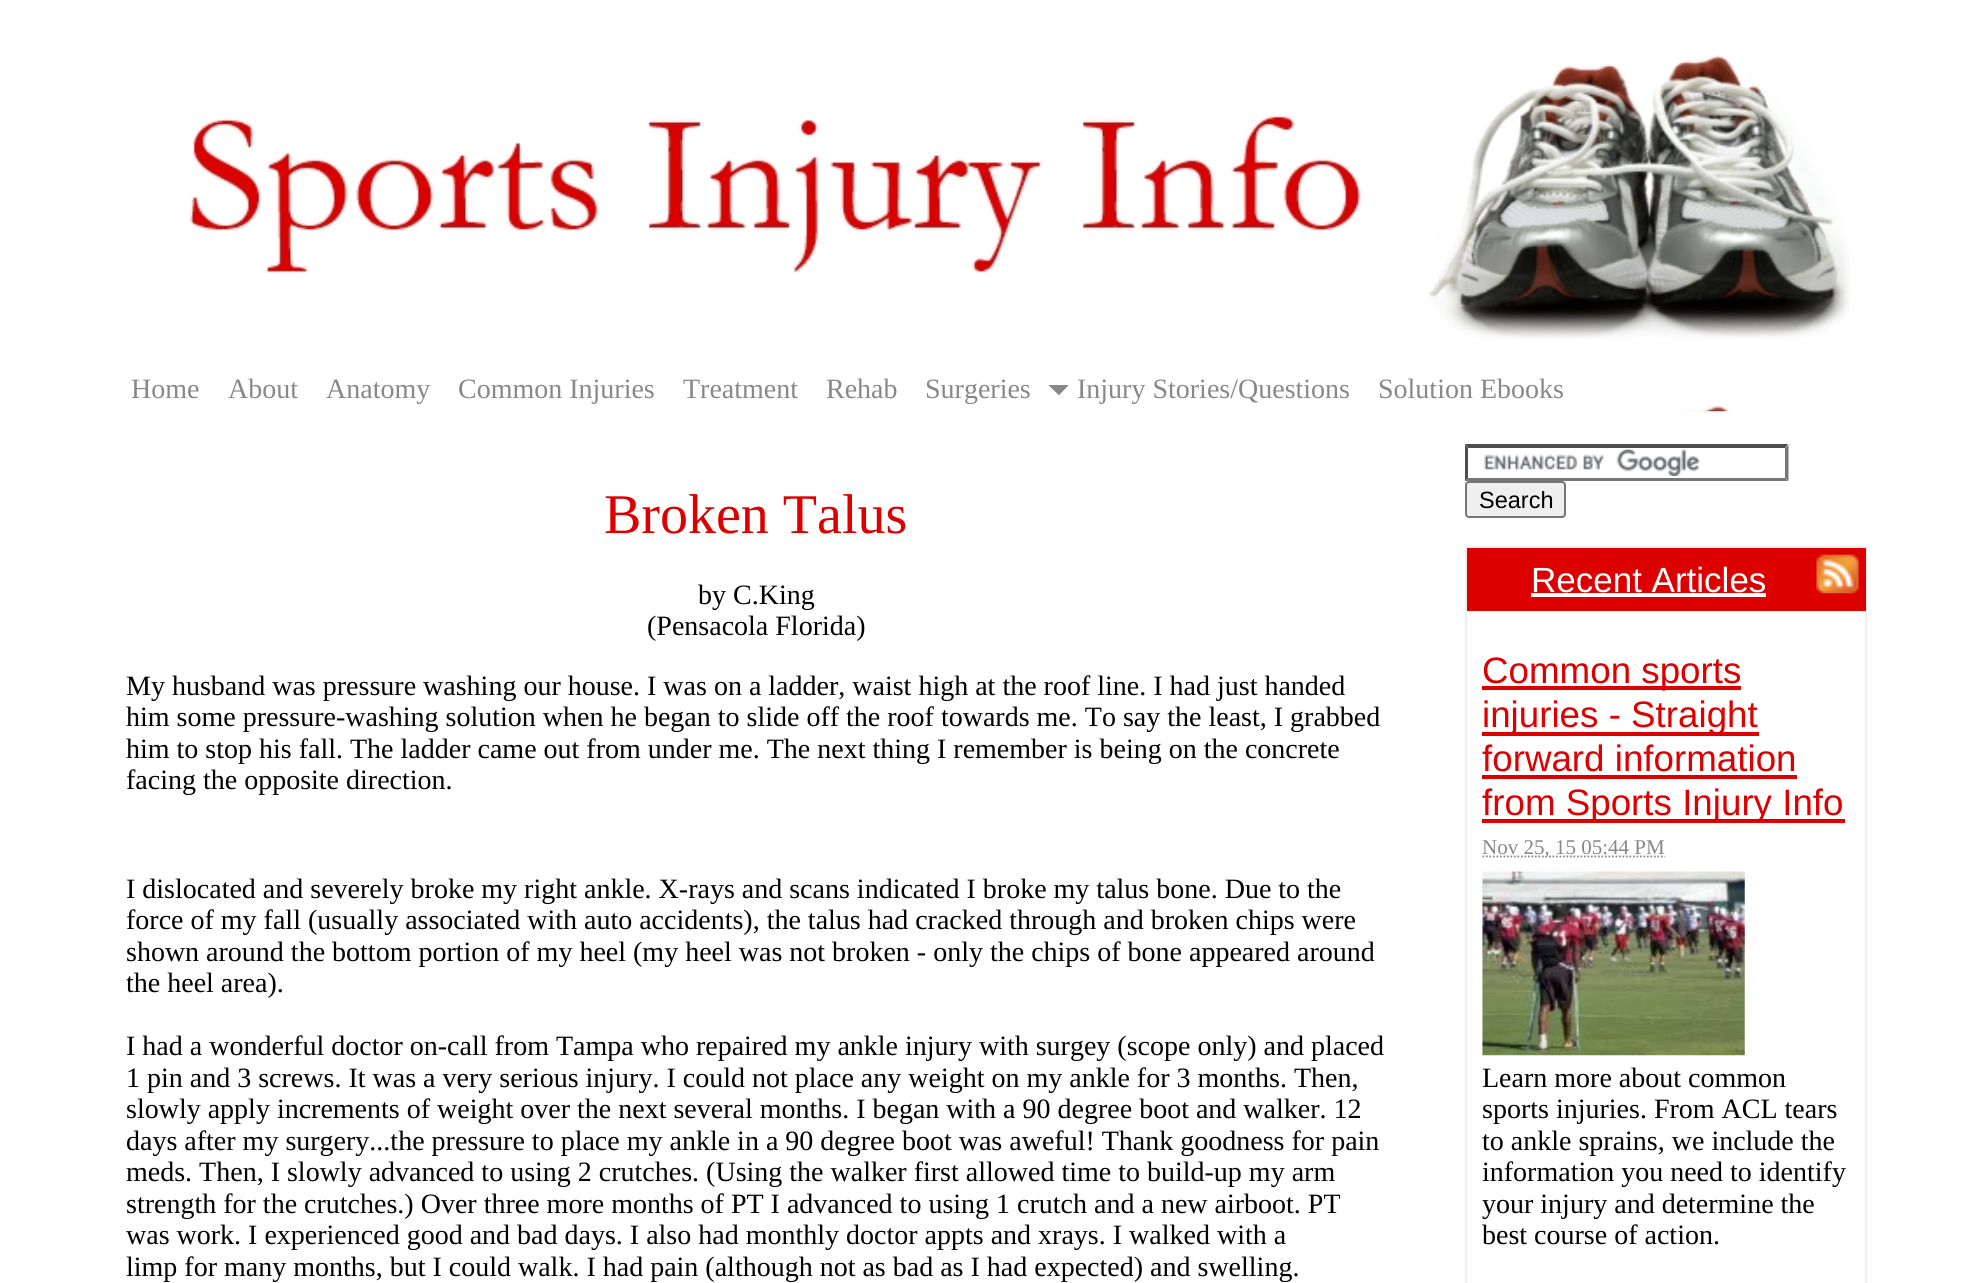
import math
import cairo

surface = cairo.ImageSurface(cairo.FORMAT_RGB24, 1983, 1283)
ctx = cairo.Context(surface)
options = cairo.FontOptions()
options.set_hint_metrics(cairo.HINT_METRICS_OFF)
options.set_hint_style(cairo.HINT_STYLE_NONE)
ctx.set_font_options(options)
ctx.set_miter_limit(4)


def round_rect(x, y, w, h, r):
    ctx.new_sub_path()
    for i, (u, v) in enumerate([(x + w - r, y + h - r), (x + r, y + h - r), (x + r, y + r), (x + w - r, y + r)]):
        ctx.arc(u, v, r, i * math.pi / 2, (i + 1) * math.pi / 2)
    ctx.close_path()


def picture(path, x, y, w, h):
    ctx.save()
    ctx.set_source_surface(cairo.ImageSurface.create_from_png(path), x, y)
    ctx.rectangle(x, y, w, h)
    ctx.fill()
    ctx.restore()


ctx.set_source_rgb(1, 1, 1)
ctx.paint()
picture("img1.png", 189, 55, 1661, 357)
ctx.select_font_face("Liberation Serif")
ctx.set_font_size(28)
ctx.set_source_rgb(0.533, 0.533, 0.533)
ctx.move_to(131, 398)
ctx.show_text("Home")
ctx.move_to(228, 398)
ctx.show_text("About")
ctx.move_to(326, 398)
ctx.show_text("Anatomy")
ctx.move_to(458, 398)
ctx.show_text("Common Injuries")
ctx.move_to(683, 398)
ctx.show_text("Treatment")
ctx.move_to(826, 398)
ctx.show_text("Rehab")
ctx.move_to(925, 398)
ctx.show_text("Surgeries")
ctx.new_path()
ctx.move_to(1048, 385)
ctx.line_to(1069, 385)
ctx.line_to(1059, 395.5)
ctx.close_path()
ctx.fill()
ctx.set_source_rgb(1, 1, 1)
ctx.new_path()
ctx.move_to(1069, 385)
ctx.line_to(1069, 406)
ctx.line_to(1059, 395.5)
ctx.close_path()
ctx.move_to(1048, 406)
ctx.line_to(1048, 385)
ctx.line_to(1059, 395.5)
ctx.close_path()
ctx.fill()
ctx.set_source_rgb(0.533, 0.533, 0.533)
ctx.move_to(1077, 398)
ctx.show_text("Injury Stories/Questions")
ctx.move_to(1378, 398)
ctx.show_text("Solution Ebooks")
ctx.set_font_size(56)
ctx.set_source_rgb(0.863, 0, 0)
ctx.move_to(604, 533)
ctx.show_text("Broken Talus")
ctx.set_font_size(28)
ctx.set_source_rgb(0, 0, 0)
ctx.move_to(698, 604)
ctx.show_text("by C.King")
ctx.move_to(647, 635)
ctx.show_text("(Pensacola Florida)")
ctx.move_to(126, 695)
ctx.show_text("My husband was pressure washing our house. I was on a ladder, waist high at the roof line. I had just handed")
ctx.move_to(126, 726)
ctx.show_text("him some pressure-washing solution when he began to slide off the roof towards me. To say the least, I grabbed")
ctx.move_to(126, 758)
ctx.show_text("him to stop his fall. The ladder came out from under me. The next thing I remember is being on the concrete")
ctx.move_to(126, 789)
ctx.show_text("facing the opposite direction.")
ctx.move_to(126, 898)
ctx.show_text("I dislocated and severely broke my right ankle. X-rays and scans indicated I broke my talus bone. Due to the")
ctx.move_to(126, 929)
ctx.show_text("force of my fall (usually associated with auto accidents), the talus had cracked through and broken chips were")
ctx.move_to(126, 961)
ctx.show_text("shown around the bottom portion of my heel (my heel was not broken - only the chips of bone appeared around")
ctx.move_to(126, 992)
ctx.show_text("the heel area).")
ctx.move_to(126, 1055)
ctx.show_text("I had a wonderful doctor on-call from Tampa who repaired my ankle injury with surgey (scope only) and placed")
ctx.move_to(126, 1087)
ctx.show_text("1 pin and 3 screws. It was a very serious injury. I could not place any weight on my ankle for 3 months. Then,")
ctx.move_to(126, 1118)
ctx.show_text("slowly apply increments of weight over the next several months. I began with a 90 degree boot and walker. 12")
ctx.move_to(126, 1150)
ctx.show_text("days after my surgery...the pressure to place my ankle in a 90 degree boot was aweful! Thank goodness for pain")
ctx.move_to(126, 1181)
ctx.show_text("meds. Then, I slowly advanced to using 2 crutches. (Using the walker first allowed time to build-up my arm")
ctx.move_to(126, 1213)
ctx.show_text("strength for the crutches.) Over three more months of PT I advanced to using 1 crutch and a new airboot. PT")
ctx.move_to(126, 1244)
ctx.show_text("was work. I experienced good and bad days. I also had monthly doctor appts and xrays. I walked with a")
ctx.move_to(126, 1276)
ctx.show_text("limp for many months, but I could walk. I had pain (although not as bad as I had expected) and swelling.")
picture("img2.png", 1484, 449, 216, 27)
ctx.set_source_rgb(0.31, 0.31, 0.31)
ctx.new_path()
ctx.move_to(1465, 444)
ctx.line_to(1788, 444)
ctx.line_to(1785, 448)
ctx.line_to(1468, 448)
ctx.close_path()
ctx.fill()
ctx.set_source_rgb(0.463, 0.463, 0.463)
ctx.new_path()
ctx.move_to(1788.5, 444.5)
ctx.line_to(1788.5, 481)
ctx.line_to(1785, 478)
ctx.line_to(1785, 448)
ctx.close_path()
ctx.fill()
ctx.new_path()
ctx.move_to(1788, 481)
ctx.line_to(1465, 481)
ctx.line_to(1468, 478)
ctx.line_to(1785, 478)
ctx.close_path()
ctx.fill()
ctx.set_source_rgb(0.31, 0.31, 0.31)
ctx.new_path()
ctx.move_to(1465, 481)
ctx.line_to(1465, 444.5)
ctx.line_to(1468, 448)
ctx.line_to(1468, 478)
ctx.close_path()
ctx.fill()
ctx.set_source_rgb(0.937, 0.937, 0.937)
round_rect(1466, 482, 99, 35, 3)
ctx.fill_preserve()
ctx.set_source_rgb(0.463, 0.463, 0.463)
ctx.stroke()
ctx.select_font_face("Liberation Sans")
ctx.set_font_size(23.5)
ctx.set_source_rgb(0, 0, 0)
ctx.move_to(1479, 508)
ctx.show_text("Search")
ctx.rectangle(1466, 547, 400, 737)
ctx.set_source_rgb(0.933, 0.933, 0.933)
ctx.stroke()
ctx.set_source_rgb(0.863, 0, 0)
ctx.rectangle(1467, 548, 399, 63)
ctx.fill()
ctx.set_font_size(35)
ctx.set_source_rgb(1, 1, 1)
ctx.move_to(1531, 592)
ctx.show_text("Recent Articles")
ctx.rectangle(1531, 593, 235, 4)
ctx.fill()
picture("img3.png", 1816, 554, 43, 40)
ctx.set_source_rgb(0.863, 0, 0)
ctx.rectangle(1482, 686, 259, 4)
ctx.fill()
ctx.set_font_size(36.75)
ctx.move_to(1482, 683)
ctx.show_text("Common sports")
ctx.rectangle(1482, 732, 277, 4)
ctx.fill()
ctx.move_to(1482, 727)
ctx.show_text("injuries - Straight")
ctx.move_to(1482, 771)
ctx.show_text("forward information")
ctx.rectangle(1482, 775, 315, 4)
ctx.fill()
ctx.rectangle(1482, 819, 363, 4)
ctx.fill()
ctx.move_to(1482, 815)
ctx.show_text("from Sports Injury Info")
ctx.new_path()
ctx.move_to(1482.5, 856.5)
ctx.line_to(1665, 856.5)
ctx.set_source_rgb(0.533, 0.533, 0.533)
ctx.set_line_width(1.8)
ctx.set_dash([1.75, 1.75])
ctx.stroke()
ctx.select_font_face("Liberation Serif")
ctx.set_font_size(21)
ctx.move_to(1482, 854)
ctx.show_text("Nov 25, 15 05:44 PM")
picture("img4.png", 1482, 871, 263, 185)
ctx.set_font_size(28)
ctx.set_source_rgb(0, 0, 0)
ctx.move_to(1482, 1087)
ctx.show_text("Learn more about common")
ctx.move_to(1482, 1118)
ctx.show_text("sports injuries. From ACL tears")
ctx.move_to(1482, 1150)
ctx.show_text("to ankle sprains, we include the")
ctx.move_to(1482, 1181)
ctx.show_text("information you need to identify")
ctx.move_to(1482, 1213)
ctx.show_text("your injury and determine the")
ctx.move_to(1482, 1244)
ctx.show_text("best course of action.")
surface.write_to_png("page.png")
